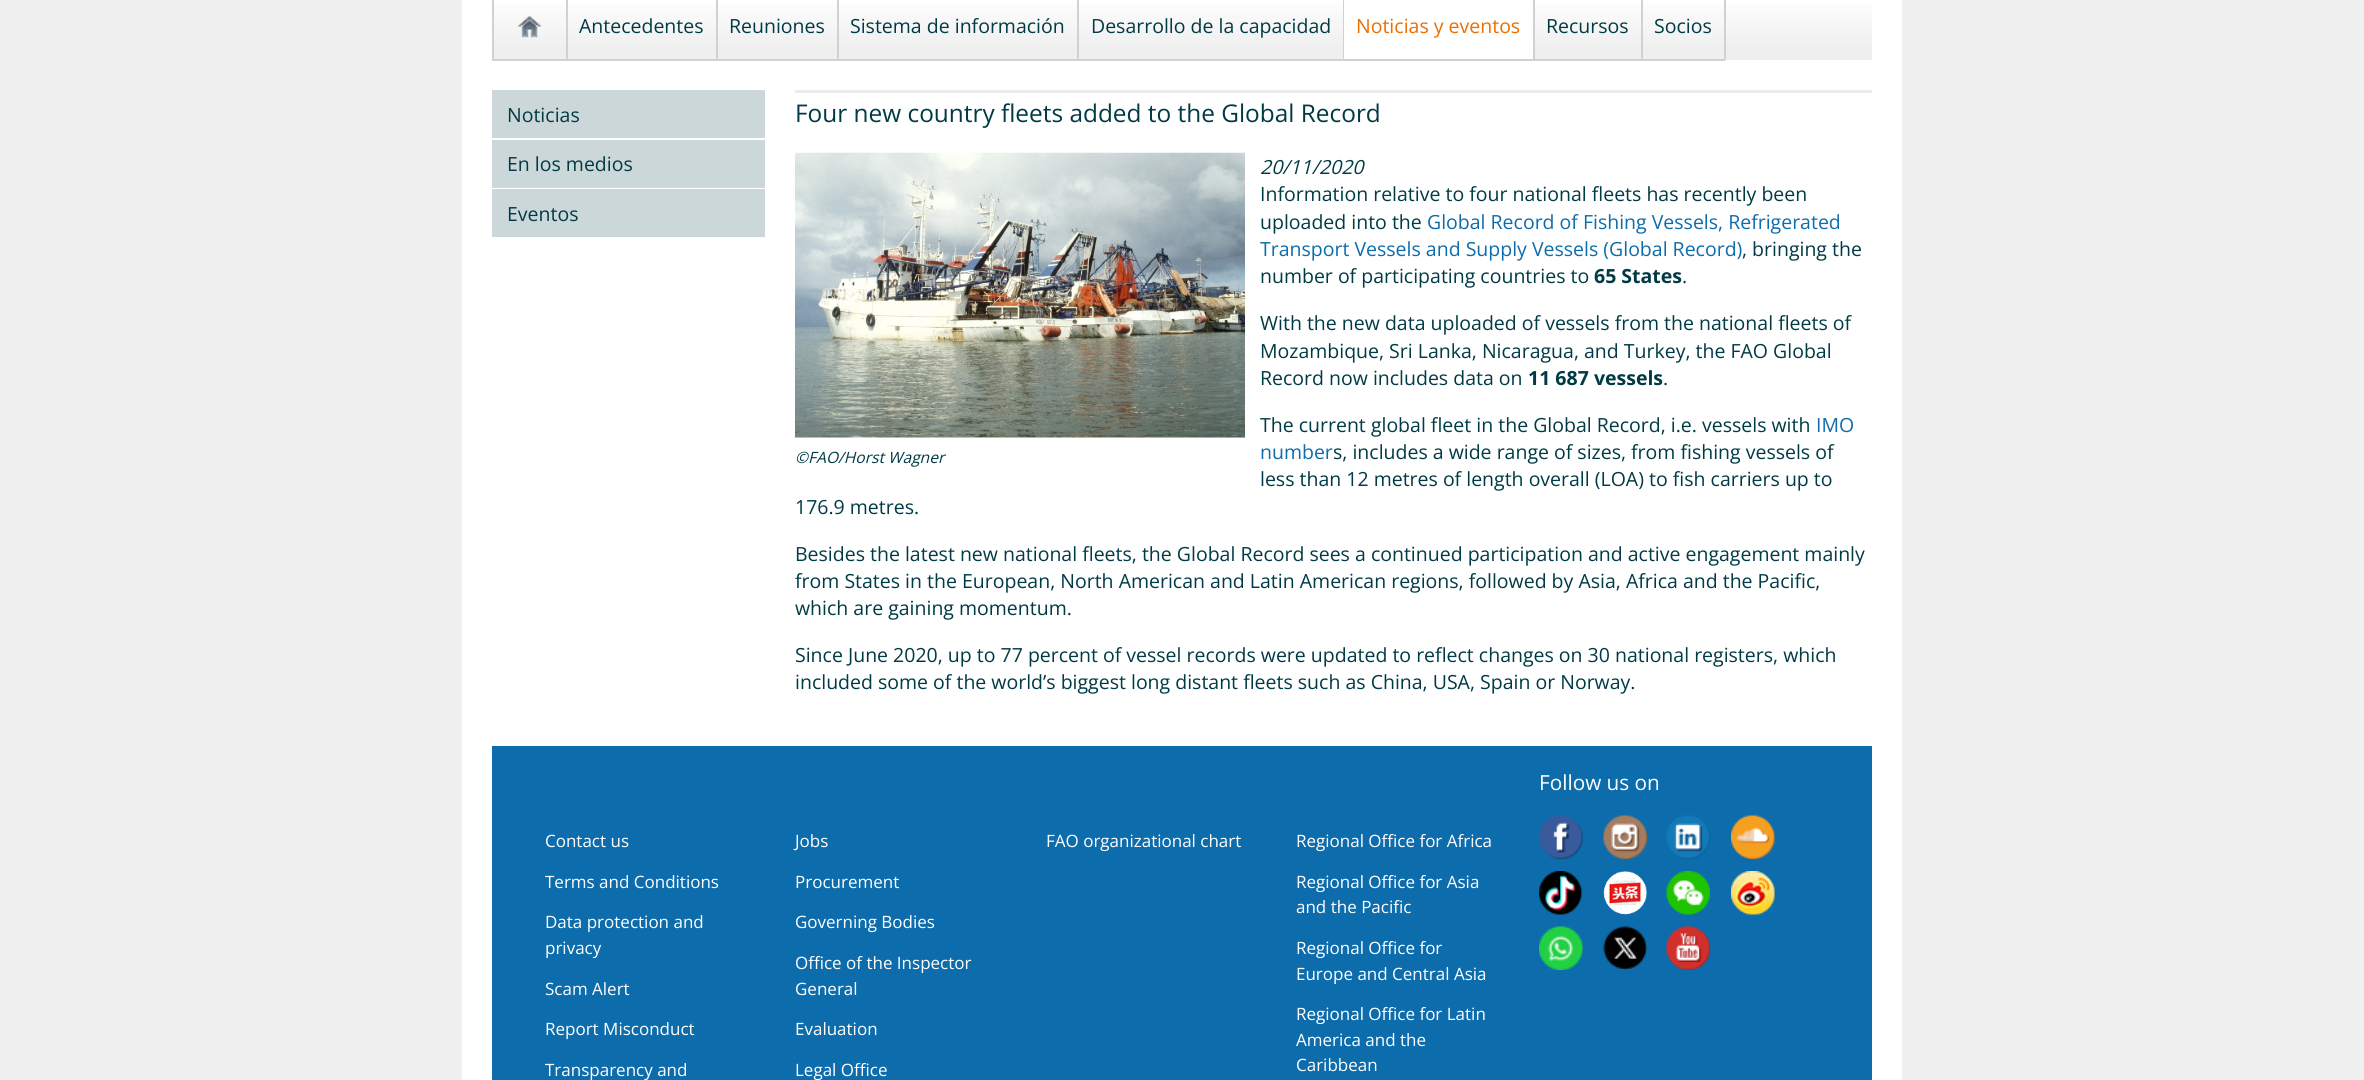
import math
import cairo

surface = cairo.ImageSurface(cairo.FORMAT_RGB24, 2364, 1080)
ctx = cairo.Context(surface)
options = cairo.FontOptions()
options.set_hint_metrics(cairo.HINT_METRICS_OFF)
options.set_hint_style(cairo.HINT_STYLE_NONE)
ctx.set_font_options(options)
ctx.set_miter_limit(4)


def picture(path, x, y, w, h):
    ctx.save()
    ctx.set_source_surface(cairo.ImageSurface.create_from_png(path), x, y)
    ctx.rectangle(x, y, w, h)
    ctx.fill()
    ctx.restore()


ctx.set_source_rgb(0.941, 0.941, 0.941)
ctx.paint()
ctx.set_source_rgb(1, 1, 1)
ctx.rectangle(462, 0, 1440, 1080)
ctx.fill()
gradient = cairo.LinearGradient(1182, -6, 1182, 60)
gradient.add_color_stop_rgba(0, 1, 1, 1, 1)
gradient.add_color_stop_rgba(0.84, 0.937, 0.937, 0.937, 1)
ctx.set_source(gradient)
ctx.rectangle(494, 3, 1378, 57)
ctx.fill()
ctx.set_source_rgb(0.824, 0.816, 0.816)
ctx.rectangle(566, 0, 2, 60)
ctx.fill()
ctx.rectangle(492, 59, 75, 2)
ctx.fill()
ctx.rectangle(492, 0, 2, 60)
ctx.fill()
picture("img1.png", 517, 16, 25, 22)
ctx.rectangle(716, 0, 2, 60)
ctx.fill()
ctx.rectangle(567, 59, 150, 2)
ctx.fill()
ctx.select_font_face("Open Sans")
ctx.set_font_size(19.5)
ctx.set_source_rgb(0, 0.231, 0.271)
ctx.move_to(579, 33)
ctx.show_text("Antecedentes")
ctx.set_source_rgb(0.824, 0.816, 0.816)
ctx.rectangle(837, 0, 2, 60)
ctx.fill()
ctx.rectangle(717, 59, 122, 2)
ctx.fill()
ctx.set_source_rgb(0, 0.231, 0.271)
ctx.move_to(729, 33)
ctx.show_text("Reuniones")
ctx.set_source_rgb(0.824, 0.816, 0.816)
ctx.rectangle(1077, 0, 2, 60)
ctx.fill()
ctx.rectangle(839, 59, 240, 2)
ctx.fill()
ctx.set_source_rgb(0, 0.231, 0.271)
ctx.move_to(850, 33)
ctx.show_text("Sistema de información")
ctx.set_source_rgb(0.824, 0.816, 0.816)
ctx.rectangle(1343, 0, 1, 60)
ctx.fill()
ctx.rectangle(1079, 59, 265, 2)
ctx.fill()
ctx.set_source_rgb(0, 0.231, 0.271)
ctx.move_to(1091, 33)
ctx.show_text("Desarrollo de la capacidad")
ctx.set_source_rgb(1, 1, 1)
ctx.rectangle(1344, 3, 189, 56)
ctx.fill()
ctx.set_source_rgb(0.824, 0.816, 0.816)
ctx.rectangle(1533, 0, 2, 60)
ctx.fill()
ctx.rectangle(1344, 59, 191, 2)
ctx.fill()
ctx.set_source_rgb(0.925, 0.431, 0)
ctx.move_to(1356, 33)
ctx.show_text("Noticias y eventos")
ctx.set_source_rgb(0.824, 0.816, 0.816)
ctx.rectangle(1641, 0, 2, 60)
ctx.fill()
ctx.rectangle(1535, 59, 108, 2)
ctx.fill()
ctx.set_source_rgb(0, 0.231, 0.271)
ctx.move_to(1546, 33)
ctx.show_text("Recursos")
ctx.set_source_rgb(0.824, 0.816, 0.816)
ctx.rectangle(1724, 0, 2, 60)
ctx.fill()
ctx.rectangle(1643, 59, 82, 2)
ctx.fill()
ctx.set_source_rgb(0, 0.231, 0.271)
ctx.move_to(1654, 33)
ctx.show_text("Socios")
ctx.set_source_rgb(0.8, 0.843, 0.851)
ctx.rectangle(492, 90, 273, 48)
ctx.fill()
ctx.set_source_rgb(0, 0.231, 0.271)
ctx.move_to(507, 122)
ctx.show_text("Noticias")
ctx.set_source_rgb(0.8, 0.843, 0.851)
ctx.rectangle(492, 140, 273, 48)
ctx.fill()
ctx.set_source_rgb(0, 0.231, 0.271)
ctx.move_to(507, 171)
ctx.show_text("En los medios")
ctx.set_source_rgb(0.8, 0.843, 0.851)
ctx.rectangle(492, 189, 273, 48)
ctx.fill()
ctx.set_source_rgb(0, 0.231, 0.271)
ctx.move_to(507, 221)
ctx.show_text("Eventos")
ctx.set_source_rgb(0.929, 0.929, 0.941)
ctx.rectangle(795, 90, 1077, 3)
ctx.fill()
ctx.set_font_size(24.4)
ctx.set_source_rgb(0, 0.231, 0.271)
ctx.move_to(795, 122)
ctx.show_text("Four new country fleets added to the Global Record")
ctx.select_font_face("Open Sans", cairo.FONT_SLANT_ITALIC)
ctx.set_font_size(19.5)
ctx.move_to(1260, 174)
ctx.show_text("20/11/2020")
ctx.select_font_face("Open Sans")
ctx.move_to(1260, 201)
ctx.show_text("Information relative to four national fleets has recently been")
ctx.move_to(1260, 229)
ctx.show_text("uploaded into the")
ctx.set_source_rgb(0.051, 0.424, 0.675)
ctx.move_to(1427, 229)
ctx.show_text("Global Record of Fishing Vessels, Refrigerated")
ctx.move_to(1260, 256)
ctx.show_text("Transport Vessels and Supply Vessels (Global Record)")
ctx.set_source_rgb(0, 0.231, 0.271)
ctx.move_to(1742, 256)
ctx.show_text(", bringing the")
ctx.move_to(1260, 283)
ctx.show_text("number of participating countries to")
ctx.select_font_face("Open Sans", cairo.FONT_SLANT_NORMAL, cairo.FONT_WEIGHT_BOLD)
ctx.move_to(1594, 283)
ctx.show_text("65 States")
ctx.select_font_face("Open Sans")
ctx.move_to(1682, 283)
ctx.show_text(".")
ctx.move_to(1260, 330)
ctx.show_text("With the new data uploaded of vessels from the national fleets of")
ctx.move_to(1260, 358)
ctx.show_text("Mozambique, Sri Lanka, Nicaragua, and Turkey, the FAO Global")
ctx.move_to(1260, 385)
ctx.show_text("Record now includes data on")
ctx.select_font_face("Open Sans", cairo.FONT_SLANT_NORMAL, cairo.FONT_WEIGHT_BOLD)
ctx.move_to(1528, 385)
ctx.show_text("11 687 vessels")
ctx.select_font_face("Open Sans")
ctx.move_to(1663, 385)
ctx.show_text(".")
ctx.move_to(1260, 432)
ctx.show_text("The current global fleet in the Global Record, i.e. vessels with")
ctx.set_source_rgb(0.051, 0.424, 0.675)
ctx.move_to(1816, 432)
ctx.show_text("IMO")
ctx.move_to(1260, 459)
ctx.show_text("number")
ctx.set_source_rgb(0, 0.231, 0.271)
ctx.move_to(1333, 459)
ctx.show_text("s, includes a wide range of sizes, from fishing vessels of")
ctx.move_to(1260, 486)
ctx.show_text("less than 12 metres of length overall (LOA) to fish carriers up to")
ctx.move_to(795, 514)
ctx.show_text("176.9 metres.")
ctx.move_to(795, 561)
ctx.show_text("Besides the latest new national fleets, the Global Record sees a continued participation and active engagement mainly")
ctx.move_to(795, 588)
ctx.show_text("from States in the European, North American and Latin American regions, followed by Asia, Africa and the Pacific,")
ctx.move_to(795, 615)
ctx.show_text("which are gaining momentum.")
ctx.move_to(795, 662)
ctx.show_text("Since June 2020, up to 77 percent of vessel records were updated to reflect changes on 30 national registers, which")
ctx.move_to(795, 689)
ctx.show_text("included some of the world’s biggest long distant fleets such as China, USA, Spain or Norway.")
picture("img2.png", 795, 152, 450, 286)
ctx.select_font_face("Open Sans", cairo.FONT_SLANT_ITALIC)
ctx.set_font_size(15.6)
ctx.move_to(795, 463)
ctx.show_text("©FAO/Horst Wagner")
ctx.set_source_rgb(0.051, 0.424, 0.675)
ctx.rectangle(492, 746, 1380, 334)
ctx.fill()
ctx.select_font_face("Open Sans")
ctx.set_font_size(20.75)
ctx.set_source_rgb(1, 1, 1)
ctx.move_to(1539, 790)
ctx.show_text("Follow us on")
picture("img3.png", 1539, 815, 44, 44)
picture("img4.png", 1603, 815, 44, 44)
picture("img5.png", 1666, 815, 44, 44)
picture("img6.png", 1731, 815, 44, 44)
picture("img7.png", 1539, 871, 44, 44)
picture("img8.png", 1603, 871, 44, 44)
picture("img9.png", 1666, 871, 44, 44)
picture("img10.png", 1731, 871, 44, 44)
picture("img11.png", 1539, 926, 44, 44)
picture("img12.png", 1603, 926, 44, 44)
picture("img13.png", 1666, 926, 44, 44)
ctx.set_font_size(17)
ctx.move_to(545, 847)
ctx.show_text("Contact us")
ctx.move_to(545, 888)
ctx.show_text("Terms and Conditions")
ctx.move_to(545, 928)
ctx.show_text("Data protection and")
ctx.move_to(545, 954)
ctx.show_text("privacy")
ctx.move_to(545, 995)
ctx.show_text("Scam Alert")
ctx.move_to(545, 1035)
ctx.show_text("Report Misconduct")
ctx.move_to(545, 1076)
ctx.show_text("Transparency and")
ctx.move_to(795, 847)
ctx.show_text("Jobs")
ctx.move_to(795, 888)
ctx.show_text("Procurement")
ctx.move_to(795, 928)
ctx.show_text("Governing Bodies")
ctx.move_to(795, 969)
ctx.show_text("Office of the Inspector")
ctx.move_to(795, 995)
ctx.show_text("General")
ctx.move_to(795, 1035)
ctx.show_text("Evaluation")
ctx.move_to(795, 1076)
ctx.show_text("Legal Office")
ctx.move_to(1046, 847)
ctx.show_text("FAO organizational chart")
ctx.move_to(1296, 847)
ctx.show_text("Regional Office for Africa")
ctx.move_to(1296, 888)
ctx.show_text("Regional Office for Asia")
ctx.move_to(1296, 913)
ctx.show_text("and the Pacific")
ctx.move_to(1296, 954)
ctx.show_text("Regional Office for")
ctx.move_to(1296, 980)
ctx.show_text("Europe and Central Asia")
ctx.move_to(1296, 1020)
ctx.show_text("Regional Office for Latin")
ctx.move_to(1296, 1046)
ctx.show_text("America and the")
ctx.move_to(1296, 1071)
ctx.show_text("Caribbean")
surface.write_to_png("page.png")
